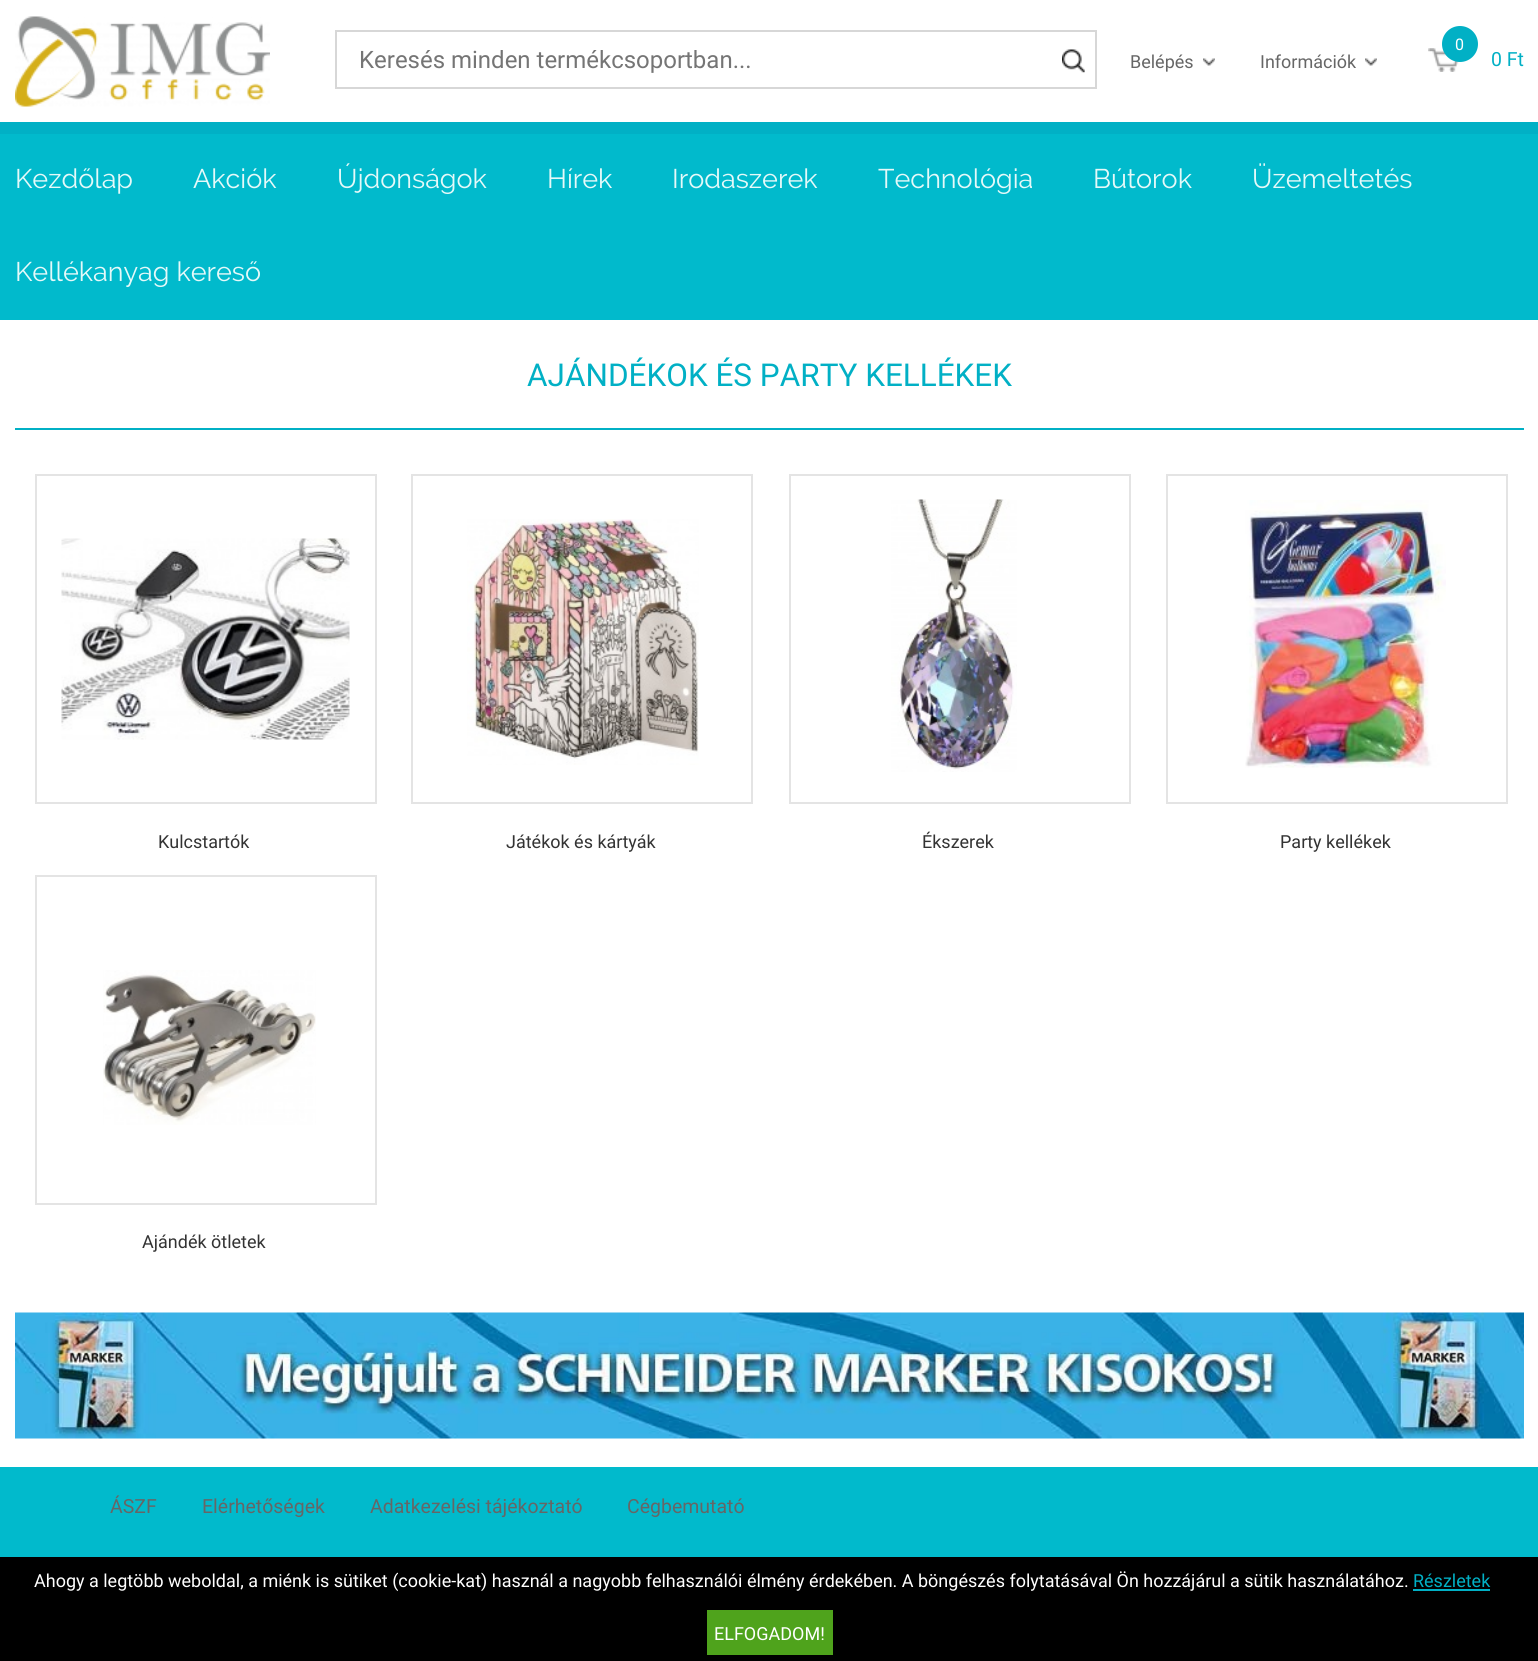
import math
import cairo

surface = cairo.ImageSurface(cairo.FORMAT_RGB24, 1538, 1661)
ctx = cairo.Context(surface)
options = cairo.FontOptions()
options.set_hint_metrics(cairo.HINT_METRICS_OFF)
options.set_hint_style(cairo.HINT_STYLE_NONE)
ctx.set_font_options(options)
ctx.set_miter_limit(4)


def picture(path, x, y, w, h):
    ctx.save()
    ctx.set_source_surface(cairo.ImageSurface.create_from_png(path), x, y)
    ctx.rectangle(x, y, w, h)
    ctx.fill()
    ctx.restore()


ctx.set_source_rgb(1, 1, 1)
ctx.paint()
ctx.set_source_rgb(0.004, 0.69, 0.773)
ctx.rectangle(0, 122, 1538, 12)
ctx.fill()
picture("img1.png", 15, 16, 255, 91)
ctx.rectangle(336, 31, 760, 57)
ctx.set_source_rgb(0.843, 0.843, 0.843)
ctx.stroke()
ctx.select_font_face("Roboto")
ctx.set_font_size(24)
ctx.set_source_rgb(0.459, 0.459, 0.459)
ctx.move_to(359, 68)
ctx.show_text("Keresés minden termékcsoportban...")
picture("img2.png", 1062, 49, 23, 24)
ctx.set_font_size(18)
ctx.set_source_rgb(0.4, 0.4, 0.4)
ctx.move_to(1130, 68)
ctx.show_text("Belépés")
picture("img3.png", 1203, 58, 12, 8)
ctx.move_to(1260, 68)
ctx.show_text("Információk")
picture("img3.png", 1365, 58, 12, 8)
picture("img4.png", 1428, 48, 31, 24)
ctx.set_source_rgb(0.004, 0.69, 0.773)
ctx.arc(1460, 44, 18, 0, 2 * math.pi)
ctx.fill()
ctx.set_font_size(16)
ctx.set_source_rgb(1, 1, 1)
ctx.move_to(1455, 50)
ctx.show_text("0")
ctx.set_font_size(19.5)
ctx.set_source_rgb(0.004, 0.69, 0.773)
ctx.move_to(1491, 66)
ctx.show_text("0 Ft")
ctx.set_source_rgb(0.004, 0.729, 0.8)
ctx.rectangle(0, 134, 1538, 186)
ctx.fill()
ctx.select_font_face("Raleway")
ctx.set_font_size(27)
ctx.set_source_rgb(0.898, 0.973, 0.976)
ctx.move_to(15, 188)
ctx.show_text("Kezdőlap")
ctx.move_to(193, 188)
ctx.show_text("Akciók")
ctx.move_to(337, 188)
ctx.show_text("Újdonságok")
ctx.move_to(547, 188)
ctx.show_text("Hírek")
ctx.move_to(672, 188)
ctx.show_text("Irodaszerek")
ctx.move_to(878, 188)
ctx.show_text("Technológia")
ctx.move_to(1093, 188)
ctx.show_text("Bútorok")
ctx.move_to(1252, 188)
ctx.show_text("Üzemeltetés")
ctx.move_to(15, 281)
ctx.show_text("Kellékanyag kereső")
ctx.set_source_rgb(0.004, 0.69, 0.773)
ctx.rectangle(15, 428, 1509, 2)
ctx.fill()
ctx.select_font_face("Roboto")
ctx.set_font_size(31.5)
ctx.move_to(527, 386)
ctx.show_text("AJÁNDÉKOK ÉS PARTY KELLÉKEK")
ctx.rectangle(36, 475, 340, 328)
ctx.set_source_rgb(0.894, 0.894, 0.894)
ctx.stroke()
picture("img5.png", 61, 538, 289, 202)
ctx.set_font_size(18)
ctx.set_source_rgb(0.2, 0.2, 0.2)
ctx.move_to(158, 848)
ctx.show_text("Kulcstartók")
ctx.rectangle(412, 475, 340, 328)
ctx.set_source_rgb(0.894, 0.894, 0.894)
ctx.stroke()
picture("img6.png", 467, 519, 232, 246)
ctx.set_source_rgb(0.2, 0.2, 0.2)
ctx.move_to(506, 848)
ctx.show_text("Játékok és kártyák")
ctx.rectangle(790, 475, 340, 328)
ctx.set_source_rgb(0.894, 0.894, 0.894)
ctx.stroke()
picture("img7.png", 891, 499, 126, 273)
ctx.set_source_rgb(0.2, 0.2, 0.2)
ctx.move_to(922, 848)
ctx.show_text("Ékszerek")
ctx.rectangle(1167, 475, 340, 328)
ctx.set_source_rgb(0.894, 0.894, 0.894)
ctx.stroke()
picture("img8.png", 1245, 500, 201, 268)
ctx.set_source_rgb(0.2, 0.2, 0.2)
ctx.move_to(1280, 848)
ctx.show_text("Party kellékek")
ctx.rectangle(36, 876, 340, 328)
ctx.set_source_rgb(0.894, 0.894, 0.894)
ctx.stroke()
picture("img9.png", 103, 970, 213, 155)
ctx.set_source_rgb(0.2, 0.2, 0.2)
ctx.move_to(142, 1248)
ctx.show_text("Ajándék ötletek")
picture("img10.png", 15, 1312, 1509, 127)
ctx.set_source_rgb(0.004, 0.729, 0.8)
ctx.rectangle(0, 1467, 1538, 90)
ctx.fill()
ctx.set_font_size(19.5)
ctx.set_source_rgb(0.4, 0.4, 0.4)
ctx.move_to(110, 1513)
ctx.show_text("ÁSZF")
ctx.move_to(202, 1513)
ctx.show_text("Elérhetőségek")
ctx.move_to(370, 1513)
ctx.show_text("Adatkezelési tájékoztató")
ctx.move_to(627, 1513)
ctx.show_text("Cégbemutató")
ctx.set_source_rgb(0, 0, 0)
ctx.rectangle(0, 1557, 1538, 104)
ctx.fill()
ctx.set_font_size(18)
ctx.set_source_rgb(1, 1, 1)
ctx.move_to(34, 1587)
ctx.show_text("Ahogy a legtöbb weboldal, a miénk is sütiket (cookie-kat) használ a nagyobb felhasználói élmény érdekében. A böngészés folytatásával Ön hozzájárul a sütik használatához.")
ctx.set_source_rgb(0.004, 0.69, 0.773)
ctx.move_to(1413, 1587)
ctx.show_text("Részletek")
ctx.rectangle(1413, 1589, 77, 2)
ctx.fill()
ctx.set_source_rgb(0.31, 0.639, 0.11)
ctx.rectangle(707, 1610, 126, 45)
ctx.fill()
ctx.set_source_rgb(1, 1, 1)
ctx.move_to(714, 1640)
ctx.show_text("ELFOGADOM!")
surface.write_to_png("page.png")
